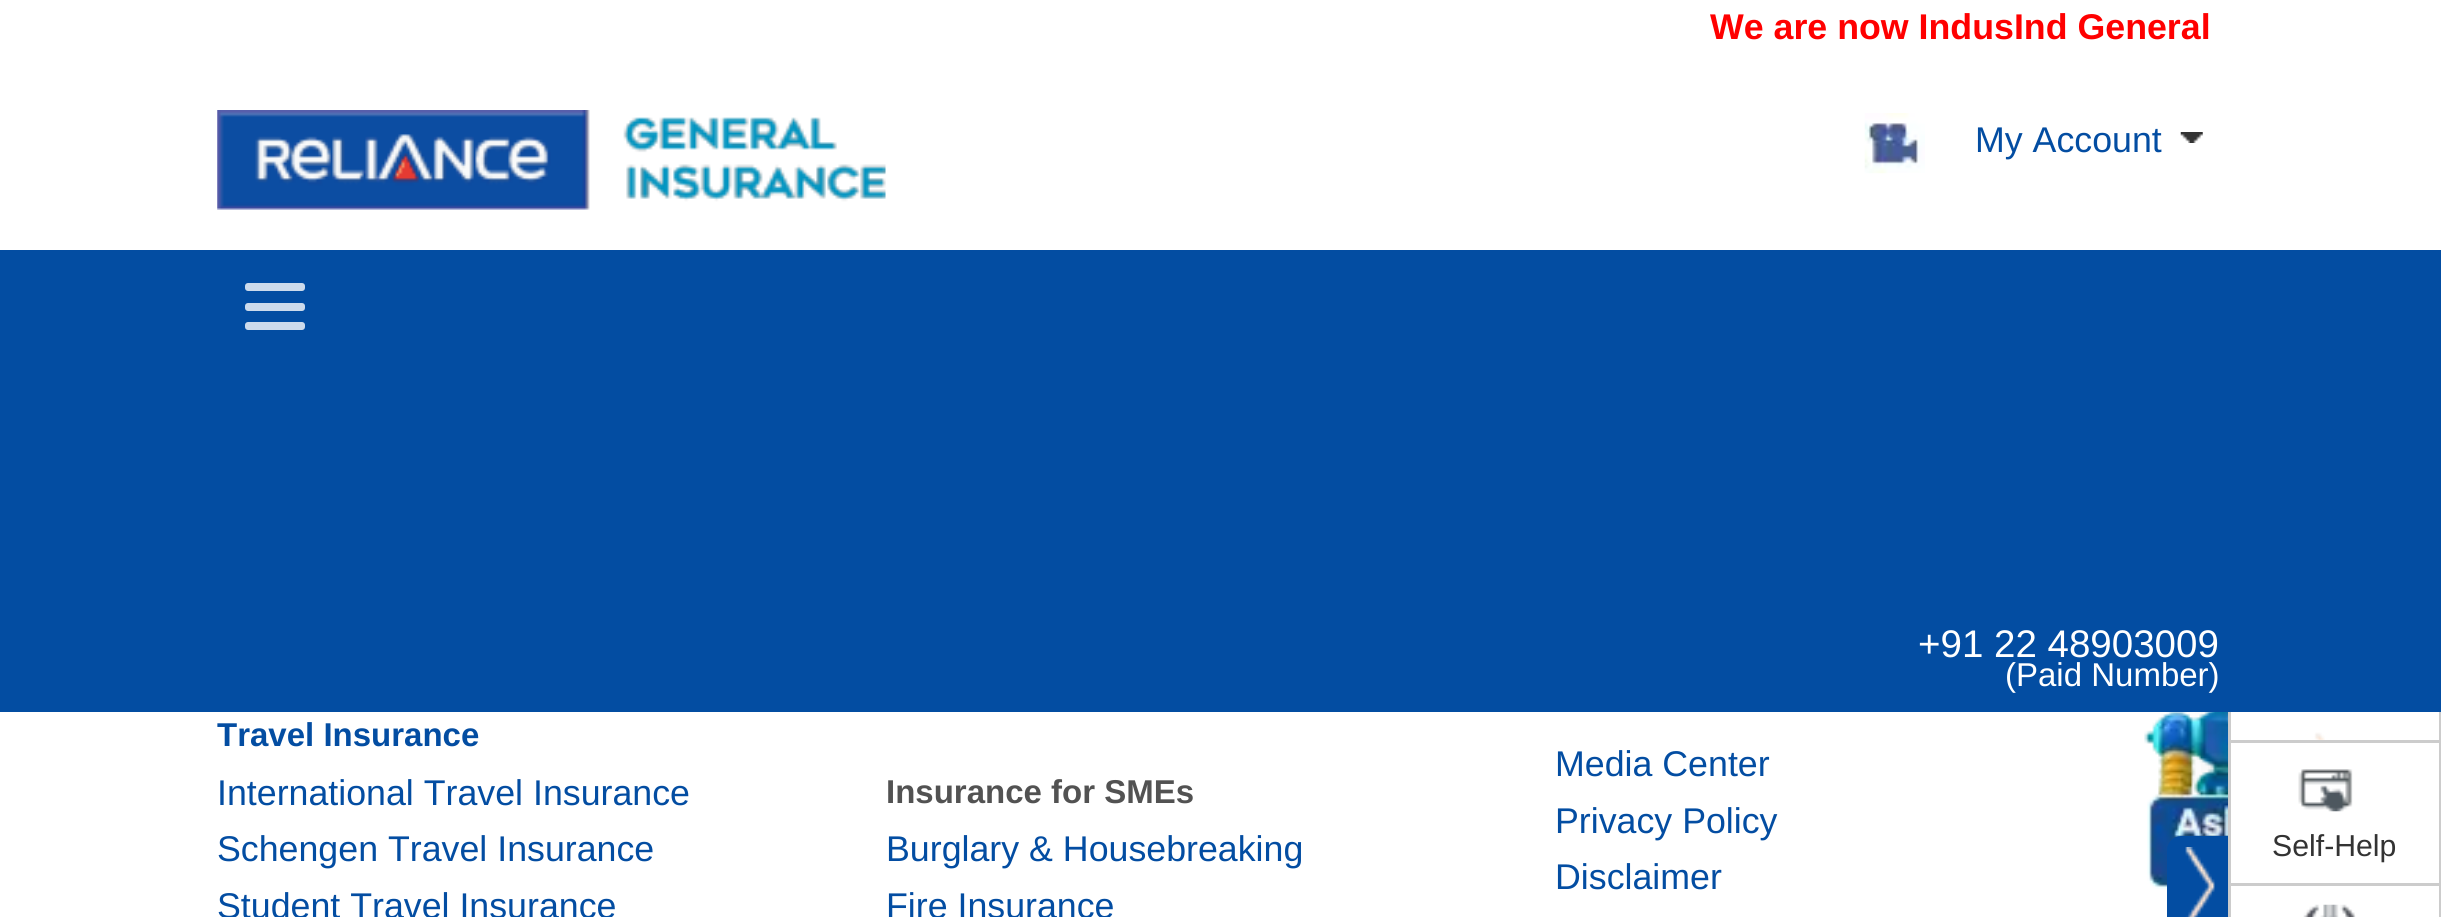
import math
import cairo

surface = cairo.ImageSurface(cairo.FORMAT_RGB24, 2441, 917)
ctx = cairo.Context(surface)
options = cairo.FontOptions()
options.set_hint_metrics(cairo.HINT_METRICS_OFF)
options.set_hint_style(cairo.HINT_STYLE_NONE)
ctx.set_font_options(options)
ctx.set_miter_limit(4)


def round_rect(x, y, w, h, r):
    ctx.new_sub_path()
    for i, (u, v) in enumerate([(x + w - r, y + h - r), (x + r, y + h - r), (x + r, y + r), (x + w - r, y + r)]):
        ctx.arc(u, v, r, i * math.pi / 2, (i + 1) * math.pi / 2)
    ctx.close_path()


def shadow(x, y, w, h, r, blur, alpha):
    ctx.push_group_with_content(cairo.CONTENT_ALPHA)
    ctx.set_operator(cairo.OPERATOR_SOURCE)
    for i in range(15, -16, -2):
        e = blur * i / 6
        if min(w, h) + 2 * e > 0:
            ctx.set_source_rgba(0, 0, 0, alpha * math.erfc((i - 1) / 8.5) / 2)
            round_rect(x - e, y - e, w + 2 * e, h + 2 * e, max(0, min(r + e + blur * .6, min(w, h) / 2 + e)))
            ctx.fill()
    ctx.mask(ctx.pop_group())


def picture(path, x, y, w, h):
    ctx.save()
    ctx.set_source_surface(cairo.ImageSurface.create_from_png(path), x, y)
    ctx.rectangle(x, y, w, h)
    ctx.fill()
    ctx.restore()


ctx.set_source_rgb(1, 1, 1)
ctx.paint()
ctx.select_font_face("Liberation Sans", cairo.FONT_SLANT_NORMAL, cairo.FONT_WEIGHT_BOLD)
ctx.set_font_size(35.75)
ctx.set_source_rgb(1, 0, 0)
ctx.move_to(1710, 39)
ctx.show_text("We are now IndusInd General")
picture("img1.png", 217, 110, 669, 100)
picture("img2.png", 1864, 113, 61, 61)
picture("img3.png", 2180, 132, 23, 11)
ctx.select_font_face("Liberation Sans")
ctx.set_source_rgb(0.012, 0.302, 0.635)
ctx.move_to(1975, 152)
ctx.show_text("My Account")
picture("img8.png", 2144, 712, 84, 177)
ctx.set_source_rgb(0.196, 0.196, 0.196)
shadow(2225, 426, 214, 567, 14, 20.5, 0.2)
ctx.set_source_rgb(0.012, 0.302, 0.635)
ctx.rectangle(0, 250, 2441, 462)
ctx.fill()
ctx.set_source_rgb(0.804, 0.859, 0.925)
round_rect(245, 283, 60, 8, 3)
ctx.fill()
round_rect(245, 303, 60, 8, 3)
ctx.fill()
round_rect(245, 322, 60, 8, 3)
ctx.fill()
ctx.set_font_size(38.5)
ctx.set_source_rgb(1, 1, 1)
ctx.move_to(1918, 657)
ctx.show_text("+91 22 48903009")
ctx.set_font_size(33)
ctx.move_to(2005, 686)
ctx.show_text("(Paid Number)")
ctx.select_font_face("Liberation Sans", cairo.FONT_SLANT_NORMAL, cairo.FONT_WEIGHT_BOLD)
ctx.set_source_rgb(0.012, 0.302, 0.635)
ctx.move_to(217, 746)
ctx.show_text("Travel Insurance")
ctx.select_font_face("Liberation Sans")
ctx.set_font_size(35.75)
ctx.move_to(217, 805)
ctx.show_text("International Travel Insurance")
ctx.move_to(217, 861)
ctx.show_text("Schengen Travel Insurance")
ctx.move_to(217, 918)
ctx.show_text("Student Travel Insurance")
ctx.select_font_face("Liberation Sans", cairo.FONT_SLANT_NORMAL, cairo.FONT_WEIGHT_BOLD)
ctx.set_font_size(33)
ctx.set_source_rgb(0.322, 0.322, 0.322)
ctx.move_to(886, 803)
ctx.show_text("Insurance for SMEs")
ctx.select_font_face("Liberation Sans")
ctx.set_font_size(35.75)
ctx.set_source_rgb(0.012, 0.302, 0.635)
ctx.move_to(886, 861)
ctx.show_text("Burglary & Housebreaking")
ctx.move_to(886, 918)
ctx.show_text("Fire Insurance")
ctx.move_to(1555, 776)
ctx.show_text("Media Center")
ctx.move_to(1555, 833)
ctx.show_text("Privacy Policy")
ctx.move_to(1555, 889)
ctx.show_text("Disclaimer")
ctx.new_path()
ctx.move_to(2181, 836)
ctx.line_to(2228, 836)
ctx.line_to(2228, 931)
ctx.line_to(2181, 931)
ctx.curve_to(2173.5, 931, 2167, 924.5, 2167, 917)
ctx.line_to(2167, 850)
ctx.curve_to(2167, 842.5, 2173.5, 836, 2181, 836)
ctx.close_path()
ctx.fill()
picture("img4.png", 2185, 847, 30, 70)
ctx.set_source_rgb(1, 1, 1)
ctx.rectangle(2231, 712, 208, 28)
ctx.fill()
picture("img5.png", 2314, 732, 11, 8)
ctx.set_source_rgb(0.8, 0.8, 0.8)
ctx.rectangle(2439, 712, 2, 28)
ctx.fill()
ctx.rectangle(2228, 712, 3, 28)
ctx.fill()
ctx.set_source_rgb(1, 1, 1)
ctx.rectangle(2231, 743, 208, 140)
ctx.fill()
picture("img6.png", 2298, 769, 55, 43)
ctx.set_source_rgb(0.8, 0.8, 0.8)
ctx.rectangle(2228, 740, 213, 3)
ctx.fill()
ctx.rectangle(2439, 740, 2, 143)
ctx.fill()
ctx.rectangle(2228, 740, 3, 143)
ctx.fill()
ctx.set_font_size(30.25)
ctx.set_source_rgb(0.2, 0.2, 0.2)
ctx.move_to(2272, 856)
ctx.show_text("Self-Help")
ctx.set_source_rgb(1, 1, 1)
ctx.rectangle(2231, 886, 208, 31)
ctx.fill()
picture("img7.png", 2303, 904, 53, 13)
ctx.set_source_rgb(0.8, 0.8, 0.8)
ctx.rectangle(2228, 883, 213, 3)
ctx.fill()
ctx.rectangle(2439, 883, 2, 34)
ctx.fill()
ctx.rectangle(2228, 883, 3, 34)
ctx.fill()
surface.write_to_png("page.png")
